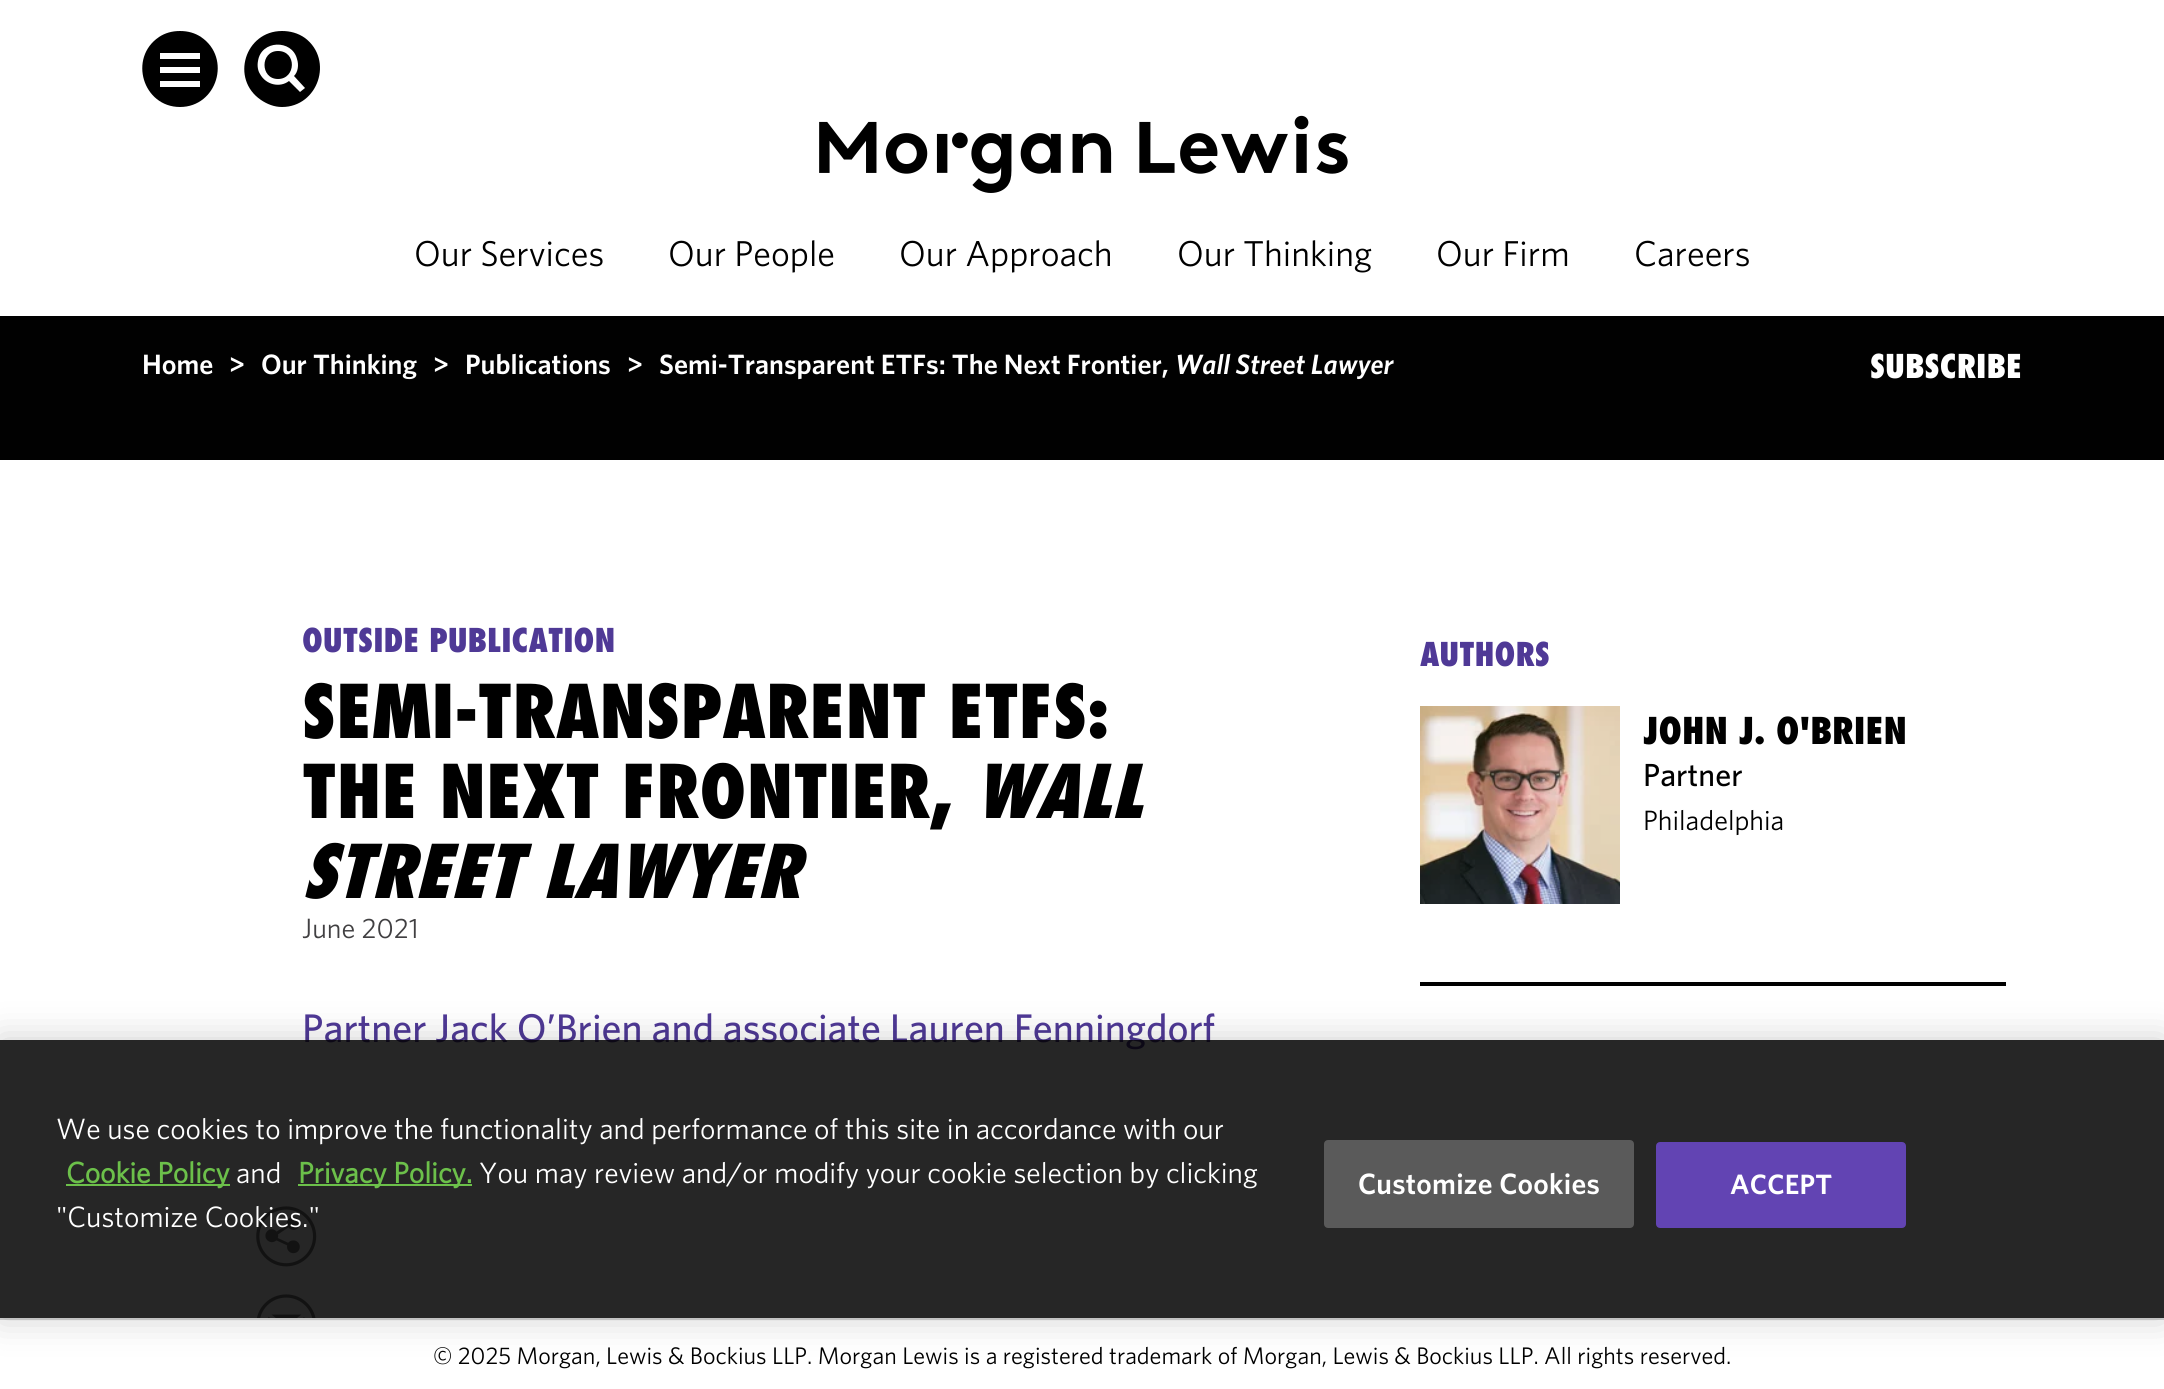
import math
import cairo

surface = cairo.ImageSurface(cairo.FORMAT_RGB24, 2164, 1389)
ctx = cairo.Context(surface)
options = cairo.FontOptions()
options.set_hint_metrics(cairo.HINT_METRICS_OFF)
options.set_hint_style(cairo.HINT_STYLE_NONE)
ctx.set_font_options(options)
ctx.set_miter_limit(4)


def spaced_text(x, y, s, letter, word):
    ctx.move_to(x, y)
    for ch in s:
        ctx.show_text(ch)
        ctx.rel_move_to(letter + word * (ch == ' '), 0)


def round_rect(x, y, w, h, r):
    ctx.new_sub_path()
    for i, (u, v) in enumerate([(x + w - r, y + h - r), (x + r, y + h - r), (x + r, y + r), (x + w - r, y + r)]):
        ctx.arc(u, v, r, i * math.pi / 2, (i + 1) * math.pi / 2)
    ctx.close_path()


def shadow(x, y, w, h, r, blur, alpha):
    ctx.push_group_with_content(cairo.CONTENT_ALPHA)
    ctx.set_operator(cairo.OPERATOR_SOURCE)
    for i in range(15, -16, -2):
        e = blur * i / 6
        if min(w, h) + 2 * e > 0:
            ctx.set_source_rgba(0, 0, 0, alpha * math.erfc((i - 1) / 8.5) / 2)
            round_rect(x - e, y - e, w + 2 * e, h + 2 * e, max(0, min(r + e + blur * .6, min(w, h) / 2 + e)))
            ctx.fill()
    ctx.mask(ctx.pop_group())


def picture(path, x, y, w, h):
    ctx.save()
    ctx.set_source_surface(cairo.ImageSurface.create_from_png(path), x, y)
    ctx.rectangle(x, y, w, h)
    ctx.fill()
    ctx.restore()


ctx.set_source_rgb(1, 1, 1)
ctx.paint()
ctx.set_source_rgb(0, 0, 0)
ctx.rectangle(0, 316, 2164, 4)
ctx.fill()
ctx.new_path()
ctx.move_to(180, 31)
ctx.curve_to(172, 31, 165, 33, 159, 37)
ctx.curve_to(128, 58, 143, 107, 180, 107)
ctx.curve_to(217, 107, 232, 58, 201, 37)
ctx.curve_to(195, 33, 188, 31, 180, 31)
ctx.close_path()
ctx.move_to(200, 87)
ctx.line_to(160, 87)
ctx.line_to(160, 81)
ctx.line_to(200, 81)
ctx.close_path()
ctx.move_to(200, 73)
ctx.line_to(160, 73)
ctx.line_to(160, 67)
ctx.line_to(200, 67)
ctx.close_path()
ctx.move_to(200, 59)
ctx.line_to(160, 59)
ctx.line_to(160, 53)
ctx.line_to(200, 53)
ctx.close_path()
ctx.fill()
ctx.new_path()
ctx.move_to(282, 107)
ctx.curve_to(274, 107, 267, 104, 261, 100)
ctx.curve_to(230, 79, 245, 31, 282, 31)
ctx.curve_to(290, 31, 298, 33, 305, 38)
ctx.curve_to(334, 60, 318, 107, 282, 107)
ctx.close_path()
ctx.move_to(289, 81)
ctx.line_to(300, 92)
ctx.line_to(305, 88)
ctx.line_to(294, 76)
ctx.curve_to(298, 72, 299, 65, 297, 59)
ctx.curve_to(292, 39, 261, 40, 258, 61)
ctx.curve_to(257, 66, 258, 71, 260, 74)
ctx.curve_to(266, 85, 280, 88, 289, 81)
ctx.close_path()
ctx.move_to(278, 79)
ctx.curve_to(260, 79, 260, 51, 278, 51)
ctx.curve_to(297, 51, 296, 79, 278, 79)
ctx.close_path()
ctx.fill()
picture("img1.png", 819, 115, 529, 78)
ctx.select_font_face("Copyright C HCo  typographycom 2 Light")
ctx.set_font_size(36)
ctx.move_to(414, 266)
ctx.show_text("Our Services")
ctx.move_to(668, 266)
ctx.show_text("Our People")
ctx.move_to(899, 266)
ctx.show_text("Our Approach")
ctx.move_to(1177, 266)
ctx.show_text("Our Thinking")
ctx.move_to(1436, 266)
ctx.show_text("Our Firm")
ctx.move_to(1634, 266)
ctx.show_text("Careers")
ctx.set_source_rgb(0.004, 0.004, 0.004)
ctx.rectangle(0, 320, 2164, 140)
ctx.fill()
ctx.select_font_face("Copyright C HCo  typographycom")
ctx.set_font_size(28)
ctx.set_source_rgb(1, 1, 1)
ctx.move_to(142, 374)
ctx.show_text("Home")
ctx.move_to(229, 374)
ctx.show_text(">")
ctx.move_to(261, 374)
ctx.show_text("Our Thinking")
ctx.move_to(433, 374)
ctx.show_text(">")
ctx.move_to(465, 374)
ctx.show_text("Publications")
ctx.move_to(627, 374)
ctx.show_text(">")
ctx.move_to(659, 374)
ctx.show_text("Semi-Transparent ETFs: The Next Frontier,")
ctx.select_font_face("Copyright C HCo  typographycom", cairo.FONT_SLANT_ITALIC)
ctx.move_to(1175, 374)
ctx.show_text("Wall Street Lawyer")
ctx.select_font_face("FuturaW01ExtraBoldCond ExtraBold")
ctx.set_font_size(32)
ctx.move_to(1870, 378)
ctx.show_text("SUBSCRIBE")
ctx.set_source_rgb(0.31, 0.224, 0.588)
ctx.move_to(302, 652)
ctx.show_text("OUTSIDE PUBLICATION")
ctx.set_font_size(72)
ctx.set_source_rgb(0, 0, 0)
ctx.move_to(302, 738)
ctx.show_text("SEMI-TRANSPARENT ETFS:")
ctx.move_to(302, 818)
ctx.show_text("THE NEXT FRONTIER,")
ctx.select_font_face("FuturaW01ExtraBoldCond ExtraBold", cairo.FONT_SLANT_ITALIC)
ctx.move_to(974, 818)
ctx.show_text("WALL")
ctx.move_to(302, 898)
ctx.show_text("STREET LAWYER")
ctx.select_font_face("Copyright C HCo  typographycom 2 Light")
ctx.set_font_size(28)
ctx.set_source_rgb(0.255, 0.251, 0.259)
ctx.move_to(302, 938)
ctx.show_text("June 2021")
ctx.select_font_face("Copyright C HCo  typographycom Light")
ctx.set_font_size(40)
ctx.set_source_rgb(0.31, 0.224, 0.588)
ctx.move_to(302, 1042)
ctx.show_text("Partner Jack O’Brien and associate Lauren Fenningdorf")
picture("img2.png", 256, 1206, 61, 61)
picture("img3.png", 256, 1294, 60, 24)
ctx.set_source_rgb(0, 0, 0)
ctx.rectangle(1420, 982, 586, 4)
ctx.fill()
ctx.select_font_face("FuturaW01ExtraBoldCond ExtraBold")
ctx.set_font_size(32)
ctx.set_source_rgb(0.31, 0.224, 0.588)
ctx.move_to(1420, 666)
ctx.show_text("AUTHORS")
picture("img4.png", 1420, 706, 200, 198)
ctx.set_font_size(36)
ctx.set_source_rgb(0, 0, 0)
ctx.move_to(1643, 744)
ctx.show_text("JOHN J. O'BRIEN")
ctx.select_font_face("Copyright C HCo  typographycom Light")
ctx.set_font_size(32)
ctx.move_to(1643, 786)
ctx.show_text("Partner")
ctx.select_font_face("Copyright C HCo  typographycom 2 Light")
ctx.set_font_size(28)
ctx.move_to(1643, 830)
ctx.show_text("Philadelphia")
ctx.set_source_rgb(0.843, 0.843, 0.843)
ctx.rectangle(0, 1318, 2164, 2)
ctx.fill()
ctx.set_font_size(24)
ctx.set_source_rgb(0, 0, 0)
ctx.move_to(433, 1364)
ctx.show_text("© 2025 Morgan, Lewis & Bockius LLP. Morgan Lewis is a registered trademark of Morgan, Lewis & Bockius LLP. All rights reserved.")
ctx.save()
ctx.set_fill_rule(cairo.FILL_RULE_EVEN_ODD)
ctx.new_path()
ctx.move_to(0, 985)
ctx.line_to(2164, 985)
ctx.line_to(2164, 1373)
ctx.line_to(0, 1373)
ctx.close_path()
ctx.move_to(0, 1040)
ctx.line_to(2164, 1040)
ctx.line_to(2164, 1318)
ctx.line_to(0, 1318)
ctx.close_path()
ctx.clip()
ctx.set_source_rgb(0, 0, 0)
shadow(0, 1040, 2164, 278, 0, 18, 0.2)
ctx.restore()
ctx.set_source_rgba(0, 0, 0, 0.85)
ctx.rectangle(0, 1040, 2164, 278)
ctx.fill()
ctx.select_font_face("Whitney")
ctx.set_font_size(29.4)
ctx.set_source_rgb(1, 1, 1)
ctx.move_to(56, 1139)
ctx.show_text("We use cookies to improve the functionality and performance of this site in accordance with our")
ctx.set_source_rgb(0.424, 0.753, 0.29)
ctx.rectangle(66, 1184, 164, 2)
ctx.fill()
ctx.select_font_face("Whitney", cairo.FONT_SLANT_NORMAL, cairo.FONT_WEIGHT_BOLD)
ctx.move_to(66, 1183)
ctx.show_text("Cookie Policy")
ctx.select_font_face("Whitney")
ctx.set_source_rgb(1, 1, 1)
ctx.move_to(236, 1183)
ctx.show_text("and")
ctx.set_source_rgb(0.424, 0.753, 0.29)
ctx.rectangle(298, 1184, 174, 2)
ctx.fill()
ctx.select_font_face("Whitney", cairo.FONT_SLANT_NORMAL, cairo.FONT_WEIGHT_BOLD)
ctx.move_to(298, 1183)
ctx.show_text("Privacy Policy.")
ctx.select_font_face("Whitney")
ctx.set_source_rgb(1, 1, 1)
ctx.move_to(479, 1183)
ctx.show_text("You may review and/or modify your cookie selection by clicking")
ctx.move_to(56, 1227)
ctx.show_text("\"Customize Cookies.\"")
ctx.set_source_rgb(0.353, 0.353, 0.353)
round_rect(1325, 1141, 308, 86, 3)
ctx.fill_preserve()
ctx.stroke()
ctx.select_font_face("Whitney SemiBold")
ctx.set_source_rgb(1, 1, 1)
spaced_text(1358, 1194, "Customize Cookies", 0.25, 0)
ctx.set_source_rgb(0.384, 0.267, 0.702)
round_rect(1657, 1143, 248, 84, 3)
ctx.fill_preserve()
ctx.stroke()
ctx.set_font_size(28)
ctx.set_source_rgb(1, 1, 1)
spaced_text(1730, 1194, "ACCEPT", 0.25, 0)
surface.write_to_png("page.png")
